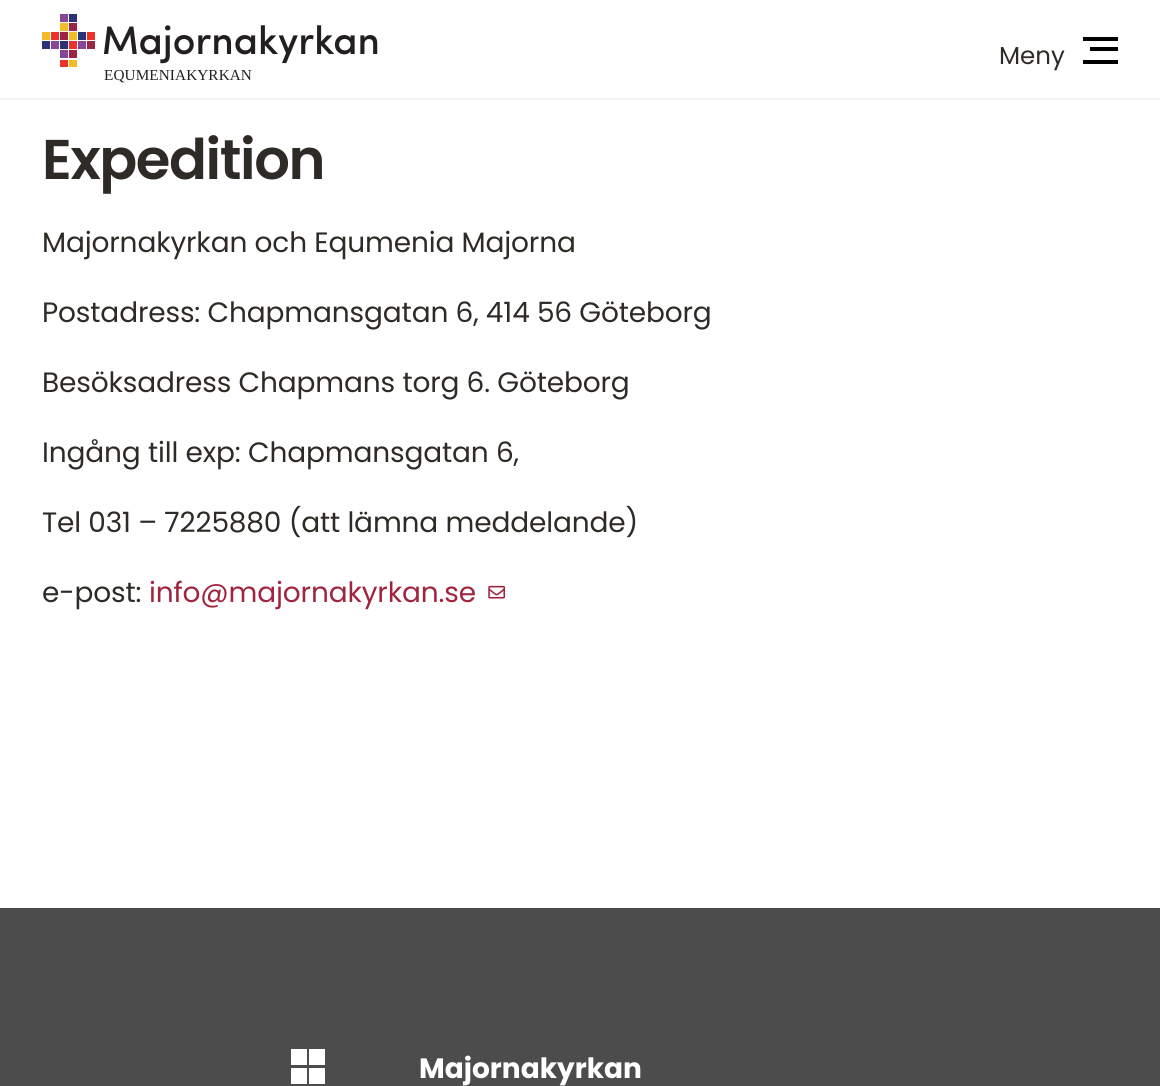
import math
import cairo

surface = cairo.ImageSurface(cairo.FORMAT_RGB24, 1160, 1086)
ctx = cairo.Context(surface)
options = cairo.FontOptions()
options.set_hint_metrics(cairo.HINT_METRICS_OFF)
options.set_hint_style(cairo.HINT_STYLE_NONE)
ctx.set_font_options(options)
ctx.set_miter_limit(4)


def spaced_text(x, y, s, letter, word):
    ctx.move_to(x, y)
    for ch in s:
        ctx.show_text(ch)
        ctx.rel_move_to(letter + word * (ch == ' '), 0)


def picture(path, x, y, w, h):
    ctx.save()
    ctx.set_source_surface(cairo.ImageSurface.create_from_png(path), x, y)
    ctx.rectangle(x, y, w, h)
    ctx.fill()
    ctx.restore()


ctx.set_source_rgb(1, 1, 1)
ctx.paint()
ctx.set_source_rgb(0.953, 0.953, 0.953)
ctx.rectangle(0, 98, 1160, 2)
ctx.fill()
ctx.select_font_face("Poppins")
ctx.set_font_size(24.5)
ctx.set_source_rgb(0.18, 0.165, 0.145)
ctx.move_to(999, 64)
ctx.show_text("Meny")
ctx.set_source_rgb(0, 0, 0)
ctx.rectangle(1083, 37, 35, 4)
ctx.fill()
ctx.rectangle(1090, 47, 28, 4)
ctx.fill()
ctx.rectangle(1083, 60, 35, 4)
ctx.fill()
picture("img1.png", 42, 14, 336, 53)
ctx.select_font_face("Liberation Serif")
ctx.set_font_size(15.25)
ctx.set_source_rgb(0.137, 0.122, 0.125)
spaced_text(104, 80, "EQUMENIAKYRKAN", 0.1, 0)
ctx.select_font_face("Poppins SemiBold")
ctx.set_font_size(56)
ctx.set_source_rgb(0.18, 0.165, 0.145)
spaced_text(42, 179, "Expedition", -1.4, 0)
ctx.select_font_face("Poppins")
ctx.set_font_size(28)
spaced_text(42, 252, "Majornakyrkan och Equmenia Majorna", -0.15, 0)
spaced_text(42, 322, "Postadress: Chapmansgatan 6, 414 56 Göteborg", -0.15, 0)
spaced_text(42, 392, "Besöksadress Chapmans torg 6. Göteborg", -0.15, 0)
spaced_text(42, 462, "Ingång till exp: Chapmansgatan 6,", -0.15, 0)
spaced_text(42, 532, "Tel 031 – 7225880 (att lämna meddelande)", -0.15, 0)
spaced_text(42, 602, "e-post:", -0.15, 0)
ctx.set_source_rgb(0.631, 0.141, 0.247)
spaced_text(149, 602, "info@majornakyrkan.se", -0.15, 0)
picture("img2.png", 488, 585, 18, 14)
ctx.set_source_rgb(0.302, 0.298, 0.298)
ctx.rectangle(0, 908, 1160, 178)
ctx.fill()
ctx.set_source_rgb(1, 1, 1)
ctx.rectangle(291, 1049, 16, 16)
ctx.fill()
ctx.rectangle(309, 1049, 16, 16)
ctx.fill()
ctx.rectangle(291, 1068, 16, 16)
ctx.fill()
ctx.rectangle(309, 1068, 16, 16)
ctx.fill()
ctx.select_font_face("Poppins", cairo.FONT_SLANT_NORMAL, cairo.FONT_WEIGHT_BOLD)
ctx.move_to(419, 1078)
ctx.show_text("Majornakyrkan")
surface.write_to_png("page.png")
